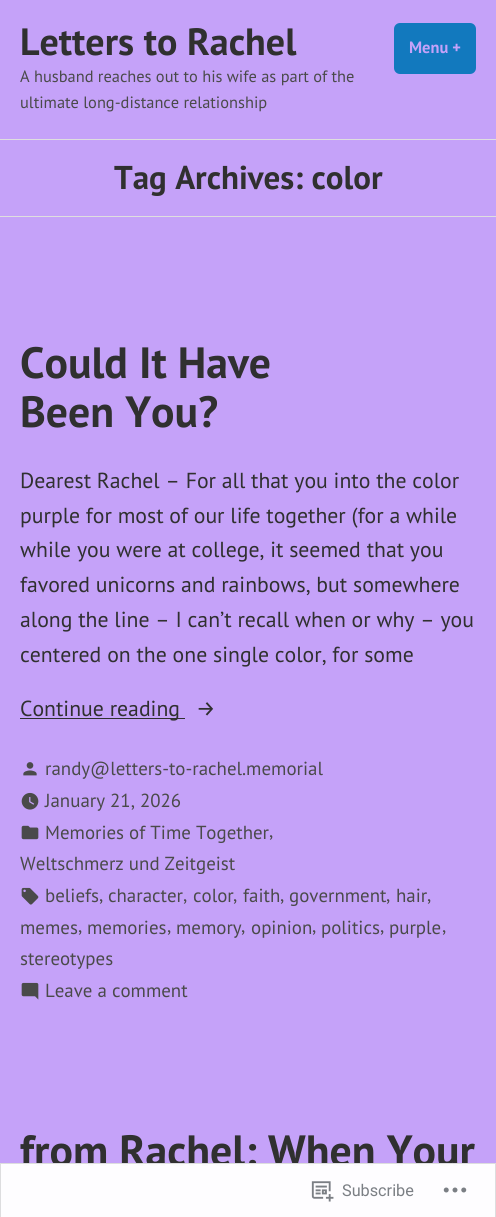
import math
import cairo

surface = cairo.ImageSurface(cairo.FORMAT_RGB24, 496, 1217)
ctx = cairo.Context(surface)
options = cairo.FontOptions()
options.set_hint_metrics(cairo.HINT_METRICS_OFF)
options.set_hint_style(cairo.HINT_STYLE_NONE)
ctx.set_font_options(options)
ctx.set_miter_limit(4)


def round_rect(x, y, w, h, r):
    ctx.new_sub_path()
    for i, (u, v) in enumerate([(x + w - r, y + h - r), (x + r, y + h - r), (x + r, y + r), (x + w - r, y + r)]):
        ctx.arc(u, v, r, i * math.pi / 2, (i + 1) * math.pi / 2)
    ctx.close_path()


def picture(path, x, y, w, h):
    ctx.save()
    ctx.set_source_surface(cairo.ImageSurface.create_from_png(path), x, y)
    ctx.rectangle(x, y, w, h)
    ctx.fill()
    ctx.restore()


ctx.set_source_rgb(0.773, 0.635, 0.976)
ctx.paint()
ctx.select_font_face("PT Sans", cairo.FONT_SLANT_NORMAL, cairo.FONT_WEIGHT_BOLD)
ctx.set_font_size(38)
ctx.set_source_rgb(0.188, 0.188, 0.188)
ctx.move_to(20, 55)
ctx.show_text("Letters to Rachel")
ctx.set_source_rgb(0.071, 0.475, 0.745)
round_rect(394, 23, 82, 51, 6)
ctx.fill()
ctx.set_font_size(16.4)
ctx.set_source_rgb(0.773, 0.635, 0.976)
ctx.move_to(409, 53)
ctx.show_text("Menu +")
ctx.select_font_face("PT Sans")
ctx.set_source_rgb(0.29, 0.29, 0.29)
ctx.move_to(20, 82)
ctx.show_text("A husband reaches out to his wife as part of the")
ctx.move_to(20, 108)
ctx.show_text("ultimate long-distance relationship")
ctx.set_source_rgb(0.875, 0.875, 0.875)
ctx.rectangle(0, 139, 496, 1)
ctx.fill()
ctx.select_font_face("PT Sans", cairo.FONT_SLANT_NORMAL, cairo.FONT_WEIGHT_BOLD)
ctx.set_font_size(33)
ctx.set_source_rgb(0.188, 0.188, 0.188)
ctx.move_to(114, 189)
ctx.show_text("Tag Archives: color")
ctx.set_source_rgb(0.875, 0.875, 0.875)
ctx.rectangle(0, 216, 496, 1)
ctx.fill()
ctx.set_font_size(43.75)
ctx.set_source_rgb(0.188, 0.188, 0.188)
ctx.move_to(20, 378)
ctx.show_text("Could It Have")
ctx.move_to(20, 427)
ctx.show_text("Been You?")
ctx.select_font_face("PT Sans")
ctx.set_font_size(21.75)
ctx.move_to(20, 488)
ctx.show_text("Dearest Rachel – For all that you into the color")
ctx.move_to(20, 523)
ctx.show_text("purple for most of our life together (for a while")
ctx.move_to(20, 557)
ctx.show_text("while you were at college, it seemed that you")
ctx.move_to(20, 592)
ctx.show_text("favored unicorns and rainbows, but somewhere")
ctx.move_to(20, 627)
ctx.show_text("along the line – I can’t recall when or why – you")
ctx.move_to(20, 662)
ctx.show_text("centered on the one single color, for some")
ctx.rectangle(20, 718, 165, 1)
ctx.fill()
ctx.move_to(20, 716)
ctx.show_text("Continue reading")
ctx.select_font_face("Fira Sans")
ctx.move_to(196, 716)
ctx.show_text("→")
picture("img1.png", 23, 762, 14, 14)
ctx.select_font_face("PT Sans")
ctx.set_font_size(18.9)
ctx.set_source_rgb(0.29, 0.29, 0.29)
ctx.move_to(45, 775)
ctx.show_text("randy@letters-to-rachel.memorial")
picture("img2.png", 21, 792, 18, 18)
ctx.move_to(45, 807)
ctx.show_text("January 21, 2026")
picture("img3.png", 21, 825, 18, 15)
ctx.move_to(45, 839)
ctx.show_text("Memories of Time Together")
ctx.move_to(269, 837)
ctx.show_text(",")
ctx.move_to(20, 870)
ctx.show_text("Weltschmerz und Zeitgeist")
picture("img4.png", 21, 887, 18, 18)
ctx.move_to(45, 902)
ctx.show_text("beliefs")
ctx.move_to(99, 901)
ctx.show_text(",")
ctx.move_to(108, 902)
ctx.show_text("character")
ctx.move_to(183, 901)
ctx.show_text(",")
ctx.move_to(193, 902)
ctx.show_text("color")
ctx.move_to(233, 901)
ctx.show_text(",")
ctx.move_to(243, 902)
ctx.show_text("faith")
ctx.move_to(280, 901)
ctx.show_text(",")
ctx.move_to(289, 902)
ctx.show_text("government")
ctx.move_to(386, 901)
ctx.show_text(",")
ctx.move_to(396, 902)
ctx.show_text("hair")
ctx.move_to(427, 901)
ctx.show_text(",")
ctx.move_to(20, 934)
ctx.show_text("memes")
ctx.move_to(78, 932)
ctx.show_text(",")
ctx.move_to(87, 934)
ctx.show_text("memories")
ctx.move_to(167, 932)
ctx.show_text(",")
ctx.move_to(176, 934)
ctx.show_text("memory")
ctx.move_to(241, 932)
ctx.show_text(",")
ctx.move_to(251, 934)
ctx.show_text("opinion")
ctx.move_to(312, 932)
ctx.show_text(",")
ctx.move_to(321, 934)
ctx.show_text("politics")
ctx.move_to(380, 932)
ctx.show_text(",")
ctx.move_to(389, 934)
ctx.show_text("purple")
ctx.move_to(442, 932)
ctx.show_text(",")
ctx.move_to(20, 965)
ctx.show_text("stereotypes")
picture("img5.png", 21, 982, 18, 18)
ctx.move_to(45, 997)
ctx.show_text("Leave a comment")
ctx.select_font_face("PT Sans", cairo.FONT_SLANT_NORMAL, cairo.FONT_WEIGHT_BOLD)
ctx.set_font_size(43.75)
ctx.set_source_rgb(0.188, 0.188, 0.188)
ctx.move_to(20, 1166)
ctx.show_text("from Rachel: When Your")
ctx.set_source_rgba(1, 1, 1, 0.98)
ctx.rectangle(0, 1163, 496, 54)
ctx.fill()
ctx.rectangle(0.5, 1163.5, 495, 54)
ctx.set_source_rgba(0.863, 0.863, 0.871, 0.98)
ctx.set_line_width(1)
ctx.stroke()
picture("img6.png", 311, 1181, 23, 21)
ctx.select_font_face("Roboto")
ctx.set_font_size(16.25)
ctx.set_source_rgb(0.482, 0.498, 0.518)
ctx.move_to(342, 1196)
ctx.show_text("Subscribe")
picture("img7.png", 443, 1187, 24, 6)
surface.write_to_png("page.png")
